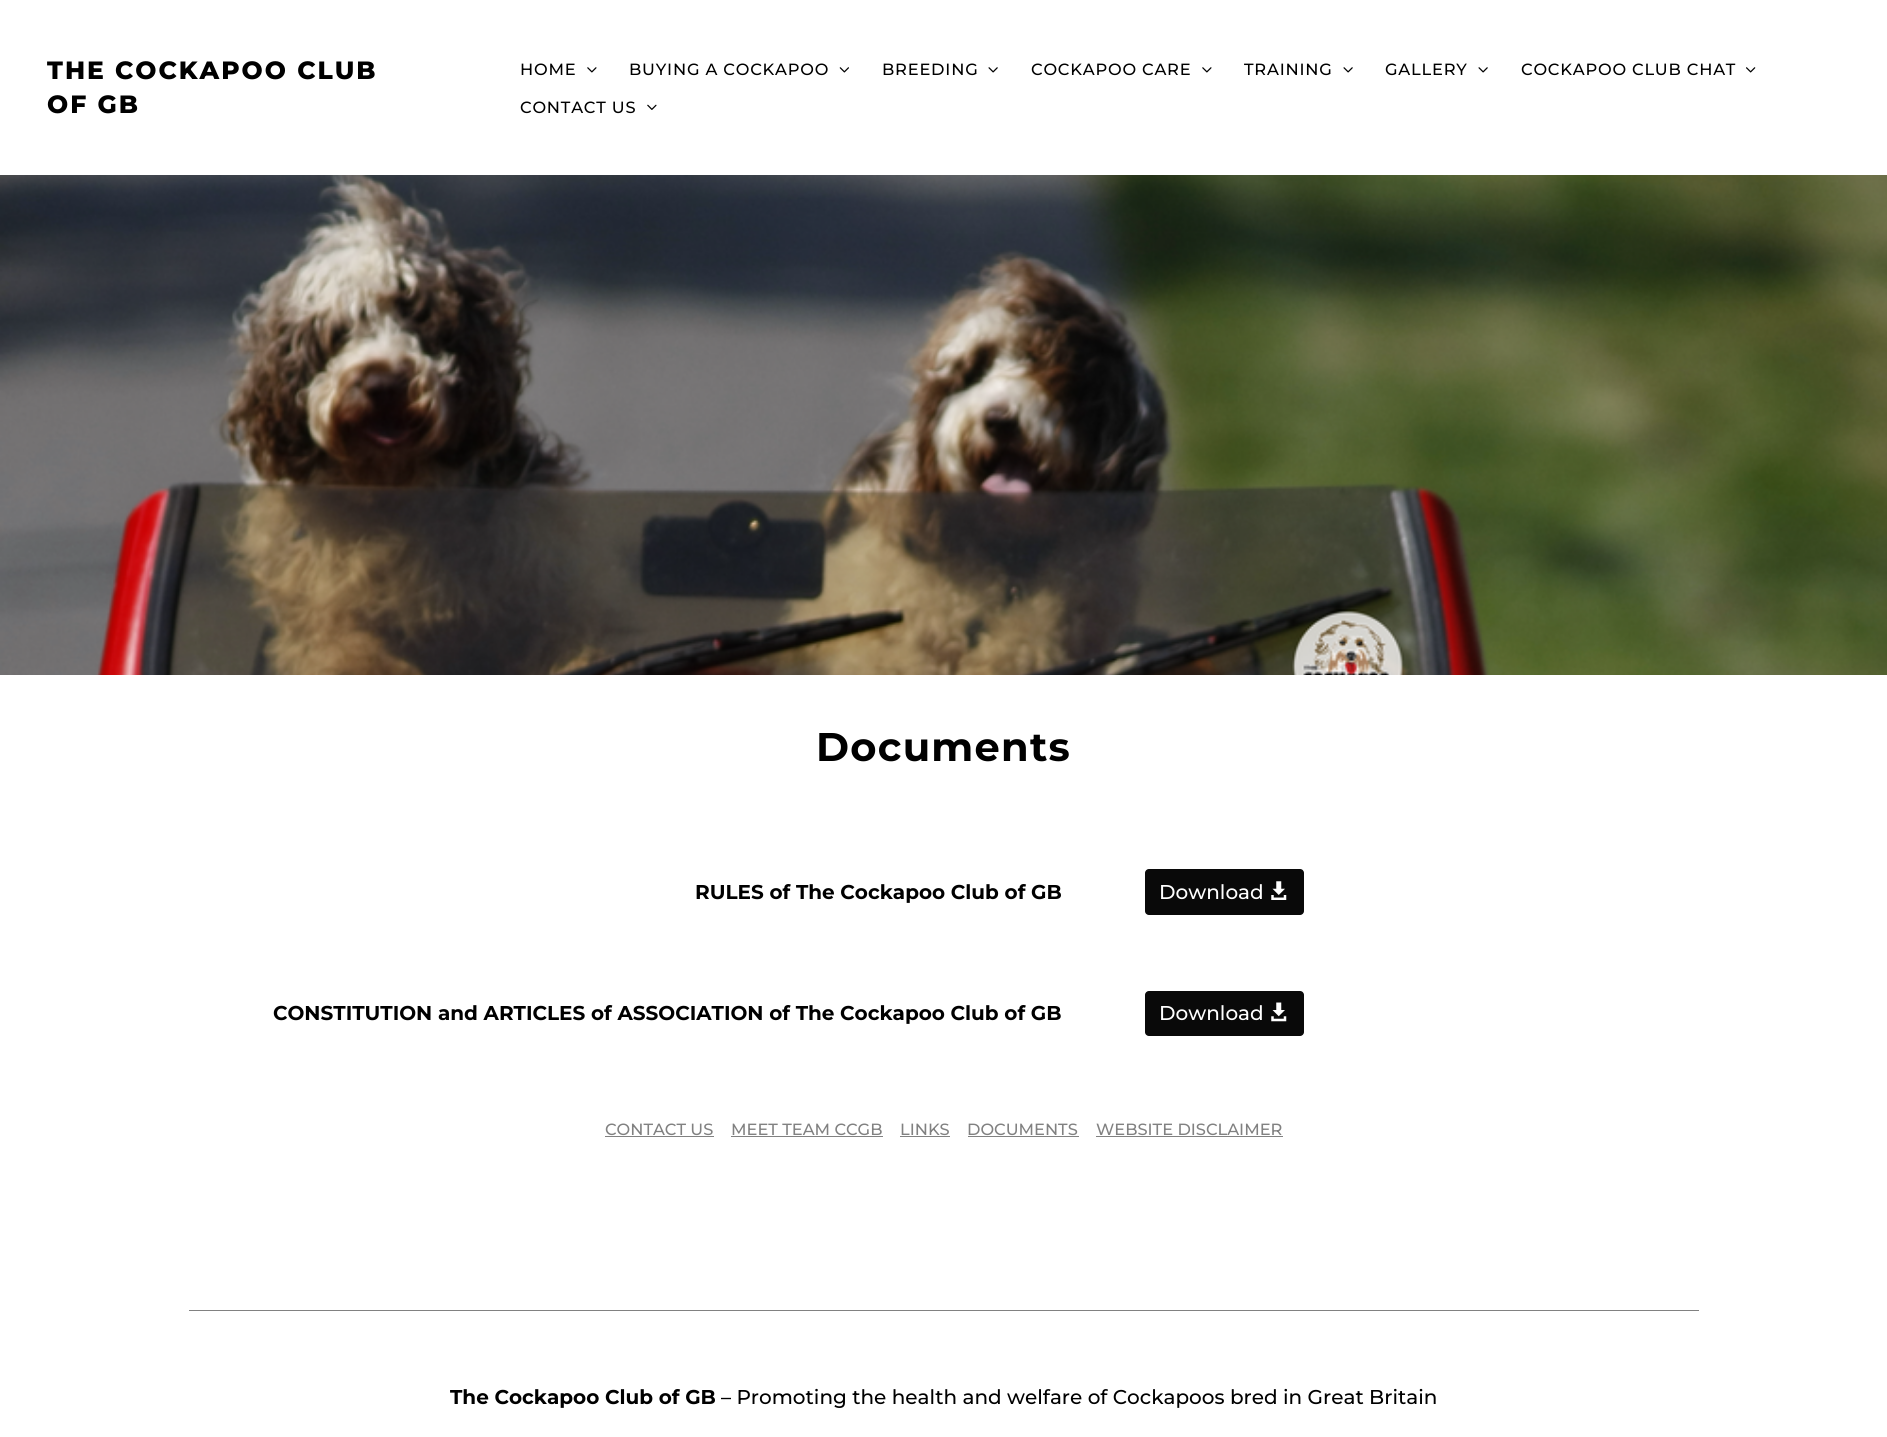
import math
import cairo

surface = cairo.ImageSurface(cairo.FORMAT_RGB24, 1887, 1437)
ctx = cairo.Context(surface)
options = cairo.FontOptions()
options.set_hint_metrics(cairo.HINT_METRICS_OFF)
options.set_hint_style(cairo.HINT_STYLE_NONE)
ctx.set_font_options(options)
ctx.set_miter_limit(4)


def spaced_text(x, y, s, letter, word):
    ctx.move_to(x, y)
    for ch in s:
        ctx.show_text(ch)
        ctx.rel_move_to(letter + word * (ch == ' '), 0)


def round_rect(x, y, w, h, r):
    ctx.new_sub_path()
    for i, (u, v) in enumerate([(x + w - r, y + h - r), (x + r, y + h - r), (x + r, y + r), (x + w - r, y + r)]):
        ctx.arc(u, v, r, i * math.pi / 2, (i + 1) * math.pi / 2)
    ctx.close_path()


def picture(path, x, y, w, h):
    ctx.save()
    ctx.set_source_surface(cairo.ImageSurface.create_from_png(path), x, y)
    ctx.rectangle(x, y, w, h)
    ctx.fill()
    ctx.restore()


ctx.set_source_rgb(1, 1, 1)
ctx.paint()
ctx.select_font_face("Montserrat ExtraBold")
ctx.set_font_size(25)
ctx.set_source_rgb(0, 0, 0)
spaced_text(47, 79, "THE COCKAPOO CLUB", 2, 0)
spaced_text(47, 113, "OF GB", 2, 0)
ctx.select_font_face("Montserrat Medium")
ctx.set_font_size(16.25)
spaced_text(520, 75, "HOME", 0.8, 0)
picture("img1.png", 587, 67, 10, 6)
spaced_text(629, 75, "BUYING A COCKAPOO", 0.8, 0)
picture("img2.png", 839, 67, 10, 6)
spaced_text(882, 75, "BREEDING", 0.8, 0)
picture("img3.png", 988, 67, 10, 6)
spaced_text(1031, 75, "COCKAPOO CARE", 0.8, 0)
picture("img1.png", 1202, 67, 10, 6)
spaced_text(1244, 75, "TRAINING", 0.8, 0)
picture("img3.png", 1343, 67, 10, 6)
spaced_text(1385, 75, "GALLERY", 0.8, 0)
picture("img3.png", 1478, 67, 10, 6)
spaced_text(1521, 75, "COCKAPOO CLUB CHAT", 0.8, 0)
picture("img4.png", 1746, 67, 10, 6)
spaced_text(520, 113, "CONTACT US", 0.8, 0)
picture("img5.png", 647, 104, 10, 6)
picture("img6.png", 0, 175, 1887, 500)
ctx.select_font_face("Montserrat", cairo.FONT_SLANT_NORMAL, cairo.FONT_WEIGHT_BOLD)
ctx.set_font_size(40)
spaced_text(816, 761, "Documents", 1.25, 0)
ctx.set_font_size(20)
ctx.move_to(695, 899)
ctx.show_text("RULES of The Cockapoo Club of GB")
ctx.set_source_rgb(0.039, 0.039, 0.039)
round_rect(1145, 869, 159, 46, 4)
ctx.fill()
ctx.select_font_face("Montserrat Medium")
ctx.set_source_rgb(1, 1, 1)
ctx.move_to(1159, 899)
ctx.show_text("Download")
picture("img7.png", 1271, 881, 16, 19)
ctx.select_font_face("Montserrat", cairo.FONT_SLANT_NORMAL, cairo.FONT_WEIGHT_BOLD)
ctx.set_source_rgb(0, 0, 0)
ctx.move_to(273, 1020)
ctx.show_text("CONSTITUTION and ARTICLES of ASSOCIATION of The Cockapoo Club of GB")
ctx.set_source_rgb(0.039, 0.039, 0.039)
round_rect(1145, 991, 159, 45, 4)
ctx.fill()
ctx.select_font_face("Montserrat Medium")
ctx.set_source_rgb(1, 1, 1)
ctx.move_to(1159, 1020)
ctx.show_text("Download")
picture("img8.png", 1271, 1002, 16, 20)
ctx.set_font_size(16.25)
ctx.set_source_rgb(0.506, 0.506, 0.506)
ctx.move_to(605, 1135)
ctx.show_text("CONTACT US")
ctx.rectangle(605, 1136, 109, 1)
ctx.fill()
ctx.move_to(731, 1135)
ctx.show_text("MEET TEAM CCGB")
ctx.rectangle(731, 1136, 152, 1)
ctx.fill()
ctx.move_to(900, 1135)
ctx.show_text("LINKS")
ctx.rectangle(900, 1136, 50, 1)
ctx.fill()
ctx.move_to(967, 1135)
ctx.show_text("DOCUMENTS")
ctx.rectangle(968, 1136, 111, 1)
ctx.fill()
ctx.move_to(1096, 1135)
ctx.show_text("WEBSITE DISCLAIMER")
ctx.rectangle(1096, 1136, 187, 1)
ctx.fill()
ctx.rectangle(189, 1310, 1510, 1)
ctx.fill()
ctx.select_font_face("Montserrat", cairo.FONT_SLANT_NORMAL, cairo.FONT_WEIGHT_BOLD)
ctx.set_font_size(20)
ctx.set_source_rgb(0, 0, 0)
ctx.move_to(450, 1404)
ctx.show_text("The Cockapoo Club of GB")
ctx.select_font_face("Montserrat Medium")
ctx.move_to(721, 1404)
ctx.show_text("– Promoting the health and welfare of Cockapoos bred in Great Britain")
surface.write_to_png("page.png")
